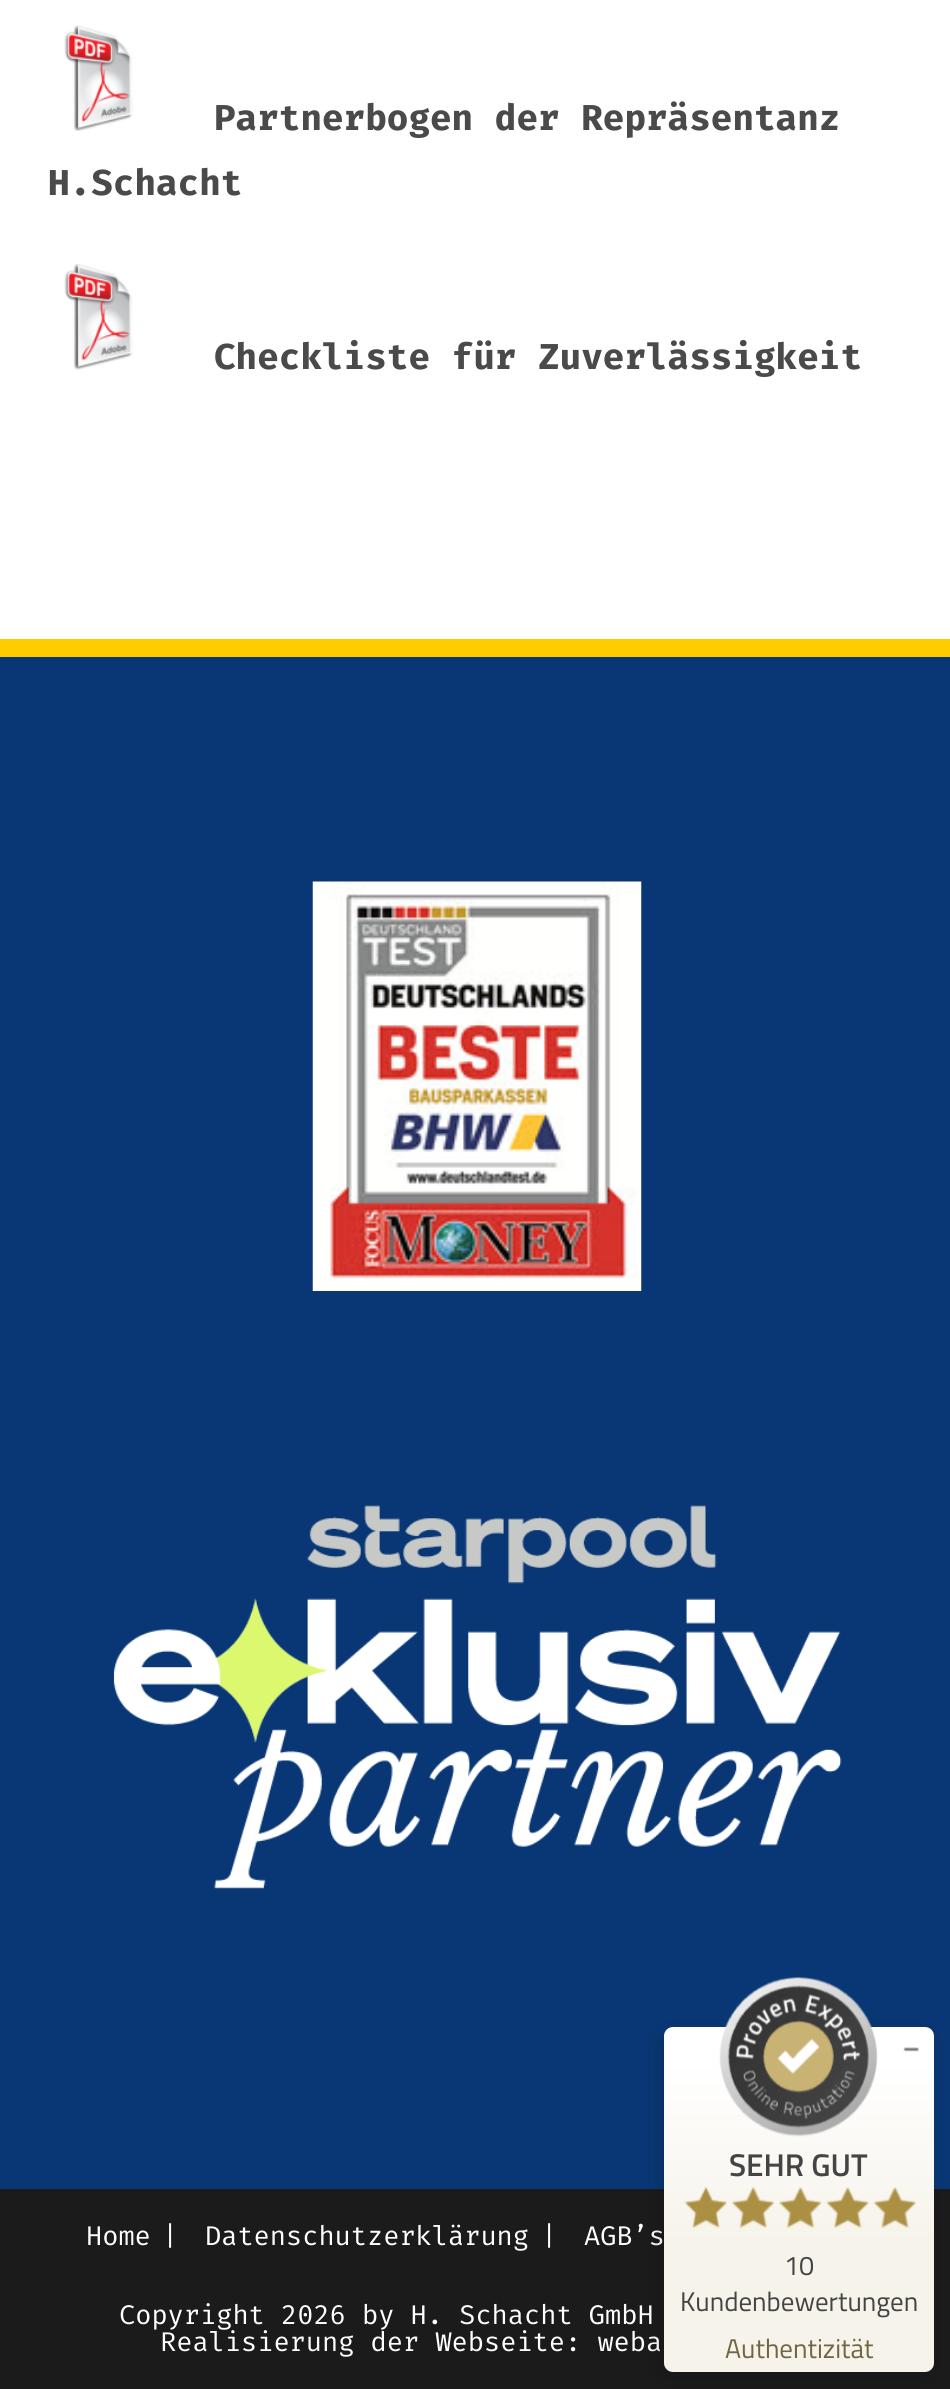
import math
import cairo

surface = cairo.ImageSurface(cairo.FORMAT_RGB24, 950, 2389)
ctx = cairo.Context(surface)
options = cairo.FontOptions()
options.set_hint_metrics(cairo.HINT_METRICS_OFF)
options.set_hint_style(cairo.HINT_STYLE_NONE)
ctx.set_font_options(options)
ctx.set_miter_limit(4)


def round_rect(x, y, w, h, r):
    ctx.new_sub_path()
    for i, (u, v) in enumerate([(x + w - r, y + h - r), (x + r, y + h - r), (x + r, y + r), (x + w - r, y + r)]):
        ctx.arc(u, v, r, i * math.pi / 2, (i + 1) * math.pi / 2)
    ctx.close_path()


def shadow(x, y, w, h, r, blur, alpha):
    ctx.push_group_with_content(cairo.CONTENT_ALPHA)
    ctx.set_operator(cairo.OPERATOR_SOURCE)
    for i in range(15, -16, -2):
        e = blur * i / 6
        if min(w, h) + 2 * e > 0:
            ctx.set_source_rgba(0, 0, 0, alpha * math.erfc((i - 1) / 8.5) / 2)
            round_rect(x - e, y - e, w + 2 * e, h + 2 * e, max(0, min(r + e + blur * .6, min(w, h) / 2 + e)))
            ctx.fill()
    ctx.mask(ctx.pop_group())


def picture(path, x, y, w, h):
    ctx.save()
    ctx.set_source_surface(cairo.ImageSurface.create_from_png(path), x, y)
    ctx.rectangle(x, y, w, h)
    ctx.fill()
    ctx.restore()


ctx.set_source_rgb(1, 1, 1)
ctx.paint()
picture("img1.png", 64, 25, 69, 106)
ctx.select_font_face("Fira Mono", cairo.FONT_SLANT_NORMAL, cairo.FONT_WEIGHT_BOLD)
ctx.set_font_size(36)
ctx.set_source_rgb(0.29, 0.29, 0.29)
ctx.move_to(214, 130)
ctx.show_text("Partnerbogen der Repräsentanz")
ctx.move_to(48, 195)
ctx.show_text("H.Schacht")
picture("img2.png", 64, 264, 69, 106)
ctx.move_to(214, 369)
ctx.show_text("Checkliste für Zuverlässigkeit")
ctx.set_source_rgb(1, 0.8, 0)
ctx.rectangle(0, 639, 950, 18)
ctx.fill()
ctx.set_source_rgb(0.039, 0.216, 0.459)
ctx.rectangle(0, 657, 950, 1532)
ctx.fill()
picture("img3.png", 312, 881, 330, 410)
picture("img4.png", 113, 1505, 729, 384)
ctx.set_source_rgb(0.106, 0.106, 0.106)
ctx.rectangle(0, 2189, 950, 200)
ctx.fill()
ctx.select_font_face("Fira Mono")
ctx.set_font_size(27)
ctx.set_source_rgb(1, 1, 1)
ctx.move_to(86, 2245)
ctx.show_text("Home")
ctx.move_to(162, 2245)
ctx.show_text("|")
ctx.move_to(205, 2245)
ctx.show_text("Datenschutzerklärung")
ctx.move_to(541, 2245)
ctx.show_text("|")
ctx.move_to(584, 2245)
ctx.show_text("AGB’s")
ctx.move_to(119, 2324)
ctx.show_text("Copyright 2026 by H. Schacht GmbH")
ctx.move_to(160, 2351)
ctx.show_text("Realisierung der Webseite: weba")
ctx.set_source_rgb(0, 0, 0)
shadow(664, 2036, 261, 336, 5, 11, 0.25)
gradient = cairo.LinearGradient(799, 2372, 799, 2027)
gradient.add_color_stop_rgba(0.37, 0.965, 0.953, 0.918, 1)
gradient.add_color_stop_rgba(0.9, 1, 1, 1, 1)
ctx.set_source(gradient)
round_rect(664, 2027, 270, 345, 9)
ctx.fill()
picture("img5.png", 903, 2047, 16, 5)
picture("img6.png", 719, 1977, 159, 160)
ctx.select_font_face("Titillium Web SemiBold")
ctx.set_font_size(31.5)
ctx.set_source_rgb(0.267, 0.267, 0.267)
ctx.move_to(729, 2176)
ctx.show_text("SEHR GUT")
picture("img7.png", 684, 2186, 43, 43)
picture("img8.png", 731, 2187, 44, 42)
picture("img9.png", 779, 2187, 43, 42)
picture("img10.png", 826, 2187, 43, 42)
picture("img11.png", 873, 2187, 43, 42)
ctx.select_font_face("Titillium Web")
ctx.set_font_size(27)
ctx.move_to(784, 2275)
ctx.show_text("10")
ctx.move_to(680, 2311)
ctx.show_text("Kundenbewertungen")
ctx.set_source_rgb(0.447, 0.396, 0.259)
ctx.move_to(725, 2358)
ctx.show_text("Authentizität")
surface.write_to_png("page.png")
